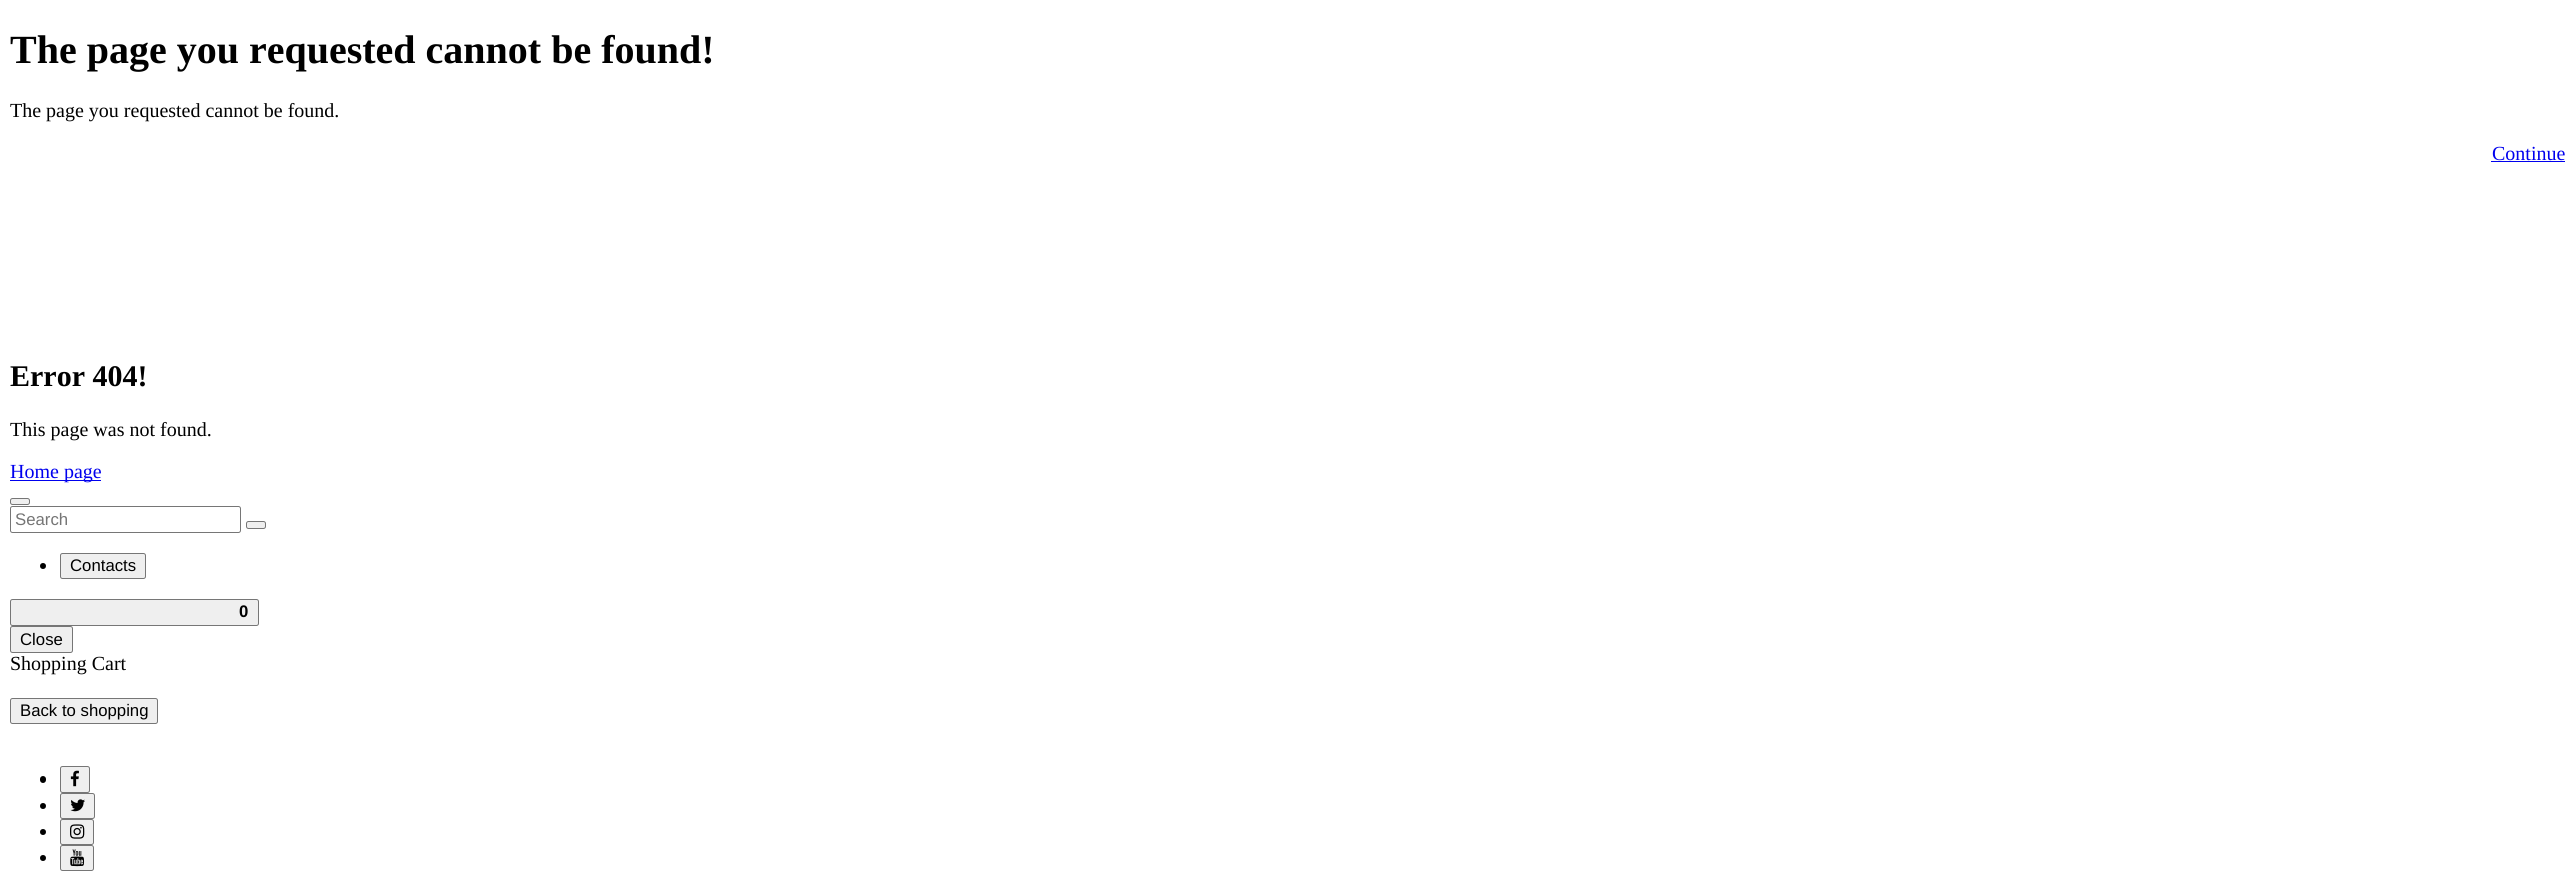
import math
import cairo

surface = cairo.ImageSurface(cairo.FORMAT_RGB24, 2574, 888)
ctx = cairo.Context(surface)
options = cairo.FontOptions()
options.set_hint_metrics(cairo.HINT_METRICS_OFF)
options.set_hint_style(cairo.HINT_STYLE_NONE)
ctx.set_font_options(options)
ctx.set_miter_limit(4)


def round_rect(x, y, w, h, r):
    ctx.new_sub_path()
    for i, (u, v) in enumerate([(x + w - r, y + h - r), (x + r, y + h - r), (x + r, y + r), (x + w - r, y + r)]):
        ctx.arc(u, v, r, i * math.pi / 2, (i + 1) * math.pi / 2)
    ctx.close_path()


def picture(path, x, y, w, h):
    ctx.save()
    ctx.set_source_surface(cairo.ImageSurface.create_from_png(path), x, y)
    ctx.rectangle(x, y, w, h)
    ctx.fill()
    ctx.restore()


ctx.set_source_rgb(1, 1, 1)
ctx.paint()
ctx.select_font_face("Liberation Serif", cairo.FONT_SLANT_NORMAL, cairo.FONT_WEIGHT_BOLD)
ctx.set_font_size(40)
ctx.set_source_rgb(0, 0, 0)
ctx.move_to(10, 63)
ctx.show_text("The page you requested cannot be found!")
ctx.select_font_face("Liberation Serif")
ctx.set_font_size(20)
ctx.move_to(10, 117)
ctx.show_text("The page you requested cannot be found.")
ctx.set_source_rgb(0, 0, 0.933)
ctx.move_to(2492, 160)
ctx.show_text("Continue")
ctx.rectangle(2491, 161, 74, 1)
ctx.fill()
ctx.select_font_face("Liberation Serif", cairo.FONT_SLANT_NORMAL, cairo.FONT_WEIGHT_BOLD)
ctx.set_font_size(30)
ctx.set_source_rgb(0, 0, 0)
ctx.move_to(10, 386)
ctx.show_text("Error 404!")
ctx.select_font_face("Liberation Serif")
ctx.set_font_size(20)
ctx.move_to(10, 436)
ctx.show_text("This page was not found.")
ctx.set_source_rgb(0, 0, 0.933)
ctx.rectangle(10, 480, 91, 1)
ctx.fill()
ctx.move_to(10, 478)
ctx.show_text("Home page")
ctx.set_source_rgb(0.937, 0.937, 0.937)
round_rect(10.5, 498.5, 19, 6, 2)
ctx.fill_preserve()
ctx.set_source_rgb(0.463, 0.463, 0.463)
ctx.set_line_width(1)
ctx.stroke()
round_rect(10.5, 506.5, 230, 26, 2)
ctx.stroke()
ctx.select_font_face("Liberation Sans")
ctx.set_font_size(16.75)
ctx.set_source_rgb(0.459, 0.459, 0.459)
ctx.move_to(15, 525)
ctx.show_text("Search")
ctx.set_source_rgb(0.937, 0.937, 0.937)
round_rect(246.5, 521.5, 19, 7, 2)
ctx.fill_preserve()
ctx.set_source_rgb(0.463, 0.463, 0.463)
ctx.stroke()
ctx.set_source_rgb(0, 0, 0)
ctx.arc(43, 566, 3, 0, 2 * math.pi)
ctx.fill()
ctx.set_source_rgb(0.937, 0.937, 0.937)
round_rect(60.5, 553.5, 85, 25, 2)
ctx.fill_preserve()
ctx.set_source_rgb(0.463, 0.463, 0.463)
ctx.stroke()
ctx.set_source_rgb(0, 0, 0)
ctx.move_to(70, 571)
ctx.show_text("Contacts")
ctx.set_source_rgb(0.937, 0.937, 0.937)
round_rect(10.5, 599.5, 248, 26, 2)
ctx.fill_preserve()
ctx.set_source_rgb(0.463, 0.463, 0.463)
ctx.stroke()
ctx.select_font_face("Liberation Sans", cairo.FONT_SLANT_NORMAL, cairo.FONT_WEIGHT_BOLD)
ctx.set_source_rgb(0, 0, 0)
ctx.move_to(239, 617)
ctx.show_text("0")
ctx.set_source_rgb(0.937, 0.937, 0.937)
round_rect(10.5, 626.5, 62, 26, 2)
ctx.fill_preserve()
ctx.set_source_rgb(0.463, 0.463, 0.463)
ctx.stroke()
ctx.select_font_face("Liberation Sans")
ctx.set_source_rgb(0, 0, 0)
ctx.move_to(20, 645)
ctx.show_text("Close")
ctx.select_font_face("Liberation Serif")
ctx.set_font_size(20)
ctx.move_to(10, 670)
ctx.show_text("Shopping Cart")
ctx.set_source_rgb(0.937, 0.937, 0.937)
round_rect(10.5, 698.5, 147, 25, 2)
ctx.fill_preserve()
ctx.set_source_rgb(0.463, 0.463, 0.463)
ctx.stroke()
ctx.select_font_face("Liberation Sans")
ctx.set_font_size(16.75)
ctx.set_source_rgb(0, 0, 0)
ctx.move_to(20, 716)
ctx.show_text("Back to shopping")
round_rect(40, 776, 6, 7, 3)
ctx.fill()
ctx.set_source_rgb(0.937, 0.937, 0.937)
round_rect(60.5, 766.5, 29, 26, 2)
ctx.fill_preserve()
ctx.set_source_rgb(0.463, 0.463, 0.463)
ctx.stroke()
picture("img1.png", 70, 770, 9, 17)
ctx.set_source_rgb(0, 0, 0)
ctx.arc(43, 806, 3, 0, 2 * math.pi)
ctx.fill()
ctx.set_source_rgb(0.937, 0.937, 0.937)
round_rect(60.5, 793.5, 34, 25, 2)
ctx.fill_preserve()
ctx.set_source_rgb(0.463, 0.463, 0.463)
ctx.stroke()
picture("img2.png", 70, 799, 15, 13)
ctx.set_source_rgb(0, 0, 0)
ctx.arc(43, 832, 3, 0, 2 * math.pi)
ctx.fill()
ctx.set_source_rgb(0.937, 0.937, 0.937)
round_rect(60.5, 819.5, 33, 25, 2)
ctx.fill_preserve()
ctx.set_source_rgb(0.463, 0.463, 0.463)
ctx.stroke()
picture("img3.png", 70, 824, 15, 15)
ctx.set_source_rgb(0, 0, 0)
ctx.arc(43, 858, 3, 0, 2 * math.pi)
ctx.fill()
ctx.set_source_rgb(0.937, 0.937, 0.937)
round_rect(60.5, 845.5, 33, 25, 2)
ctx.fill_preserve()
ctx.set_source_rgb(0.463, 0.463, 0.463)
ctx.stroke()
picture("img4.png", 70, 849, 15, 18)
surface.write_to_png("page.png")
